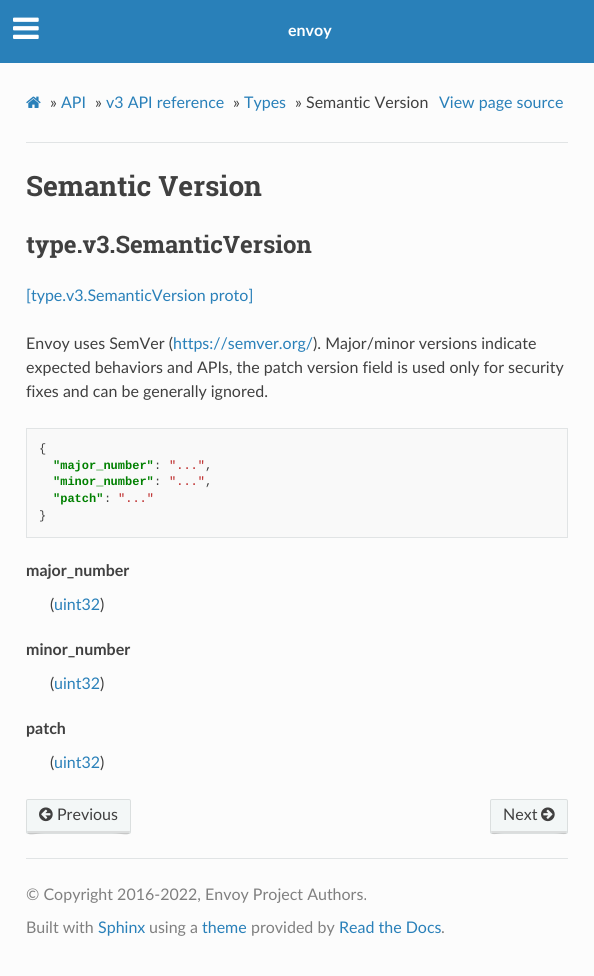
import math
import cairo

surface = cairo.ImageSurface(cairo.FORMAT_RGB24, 594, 976)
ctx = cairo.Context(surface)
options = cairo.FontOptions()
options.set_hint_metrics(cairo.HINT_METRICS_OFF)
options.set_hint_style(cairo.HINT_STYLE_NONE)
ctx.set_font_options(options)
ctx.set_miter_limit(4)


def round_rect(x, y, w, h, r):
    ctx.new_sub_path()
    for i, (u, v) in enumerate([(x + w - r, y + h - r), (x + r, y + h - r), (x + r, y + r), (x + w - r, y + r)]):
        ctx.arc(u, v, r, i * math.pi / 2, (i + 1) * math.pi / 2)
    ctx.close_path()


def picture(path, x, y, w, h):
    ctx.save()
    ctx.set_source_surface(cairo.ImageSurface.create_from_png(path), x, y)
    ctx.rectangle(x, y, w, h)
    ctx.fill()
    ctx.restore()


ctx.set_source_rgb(0.988, 0.988, 0.988)
ctx.paint()
ctx.set_source_rgb(0.161, 0.502, 0.725)
ctx.rectangle(0, 0, 594, 63)
ctx.fill()
picture("img1.png", 13, 17, 26, 22)
ctx.select_font_face("Lato", cairo.FONT_SLANT_NORMAL, cairo.FONT_WEIGHT_BOLD)
ctx.set_font_size(16)
ctx.set_source_rgb(1, 1, 1)
ctx.move_to(288, 36)
ctx.show_text("envoy")
picture("img2.png", 26, 96, 15, 12)
ctx.select_font_face("Lato")
ctx.set_source_rgb(0.251, 0.251, 0.251)
ctx.move_to(50, 108)
ctx.show_text("»")
ctx.set_source_rgb(0.161, 0.502, 0.725)
ctx.move_to(61, 108)
ctx.show_text("API")
ctx.set_source_rgb(0.251, 0.251, 0.251)
ctx.move_to(95, 108)
ctx.show_text("»")
ctx.set_source_rgb(0.161, 0.502, 0.725)
ctx.move_to(106, 108)
ctx.show_text("v3 API reference")
ctx.set_source_rgb(0.251, 0.251, 0.251)
ctx.move_to(233, 108)
ctx.show_text("»")
ctx.set_source_rgb(0.161, 0.502, 0.725)
ctx.move_to(244, 108)
ctx.show_text("Types")
ctx.set_source_rgb(0.251, 0.251, 0.251)
ctx.move_to(295, 108)
ctx.show_text("» Semantic Version")
ctx.set_source_rgb(0.161, 0.502, 0.725)
ctx.move_to(439, 108)
ctx.show_text("View page source")
ctx.set_source_rgb(0.882, 0.894, 0.898)
ctx.rectangle(26, 142, 542, 1)
ctx.fill()
ctx.select_font_face("Roboto Slab", cairo.FONT_SLANT_NORMAL, cairo.FONT_WEIGHT_BOLD)
ctx.set_font_size(28)
ctx.set_source_rgb(0.251, 0.251, 0.251)
ctx.move_to(26, 196)
ctx.show_text("Semantic Version")
ctx.set_font_size(24)
ctx.move_to(26, 253)
ctx.show_text("type.v3.SemanticVersion")
ctx.select_font_face("Lato")
ctx.set_font_size(16)
ctx.set_source_rgb(0.161, 0.502, 0.725)
ctx.move_to(26, 301)
ctx.show_text("[type.v3.SemanticVersion proto]")
ctx.set_source_rgb(0.251, 0.251, 0.251)
ctx.move_to(26, 349)
ctx.show_text("Envoy uses SemVer (")
ctx.set_source_rgb(0.161, 0.502, 0.725)
ctx.move_to(173, 349)
ctx.show_text("https://semver.org/")
ctx.set_source_rgb(0.251, 0.251, 0.251)
ctx.move_to(313, 349)
ctx.show_text("). Major/minor versions indicate")
ctx.move_to(26, 373)
ctx.show_text("expected behaviors and APIs, the patch version field is used only for security")
ctx.move_to(26, 397)
ctx.show_text("fixes and can be generally ignored.")
ctx.rectangle(26.5, 428.5, 541, 109)
ctx.set_source_rgb(0.882, 0.894, 0.898)
ctx.set_line_width(1)
ctx.stroke()
ctx.set_source_rgb(0.973, 0.973, 0.973)
ctx.rectangle(27, 429, 540, 108)
ctx.fill()
ctx.select_font_face("Liberation Mono")
ctx.set_font_size(12)
ctx.set_source_rgb(0.251, 0.251, 0.251)
ctx.move_to(39, 452)
ctx.show_text("{")
ctx.select_font_face("Liberation Mono", cairo.FONT_SLANT_NORMAL, cairo.FONT_WEIGHT_BOLD)
ctx.set_source_rgb(0, 0.502, 0)
ctx.move_to(53, 469)
ctx.show_text("\"major_number\"")
ctx.select_font_face("Liberation Mono")
ctx.set_source_rgb(0.251, 0.251, 0.251)
ctx.move_to(154, 469)
ctx.show_text(":")
ctx.set_source_rgb(0.729, 0.129, 0.129)
ctx.move_to(169, 469)
ctx.show_text("\"...\"")
ctx.set_source_rgb(0.251, 0.251, 0.251)
ctx.move_to(205, 469)
ctx.show_text(",")
ctx.select_font_face("Liberation Mono", cairo.FONT_SLANT_NORMAL, cairo.FONT_WEIGHT_BOLD)
ctx.set_source_rgb(0, 0.502, 0)
ctx.move_to(53, 485)
ctx.show_text("\"minor_number\"")
ctx.select_font_face("Liberation Mono")
ctx.set_source_rgb(0.251, 0.251, 0.251)
ctx.move_to(154, 485)
ctx.show_text(":")
ctx.set_source_rgb(0.729, 0.129, 0.129)
ctx.move_to(169, 485)
ctx.show_text("\"...\"")
ctx.set_source_rgb(0.251, 0.251, 0.251)
ctx.move_to(205, 485)
ctx.show_text(",")
ctx.select_font_face("Liberation Mono", cairo.FONT_SLANT_NORMAL, cairo.FONT_WEIGHT_BOLD)
ctx.set_source_rgb(0, 0.502, 0)
ctx.move_to(53, 502)
ctx.show_text("\"patch\"")
ctx.select_font_face("Liberation Mono")
ctx.set_source_rgb(0.251, 0.251, 0.251)
ctx.move_to(104, 502)
ctx.show_text(":")
ctx.set_source_rgb(0.729, 0.129, 0.129)
ctx.move_to(118, 502)
ctx.show_text("\"...\"")
ctx.set_source_rgb(0.251, 0.251, 0.251)
ctx.move_to(39, 519)
ctx.show_text("}")
ctx.select_font_face("Lato", cairo.FONT_SLANT_NORMAL, cairo.FONT_WEIGHT_BOLD)
ctx.set_font_size(16)
ctx.move_to(26, 576)
ctx.show_text("major_number")
ctx.select_font_face("Lato")
ctx.move_to(50, 610)
ctx.show_text("(")
ctx.set_source_rgb(0.161, 0.502, 0.725)
ctx.move_to(54, 610)
ctx.show_text("uint32")
ctx.set_source_rgb(0.251, 0.251, 0.251)
ctx.move_to(100, 610)
ctx.show_text(")")
ctx.select_font_face("Lato", cairo.FONT_SLANT_NORMAL, cairo.FONT_WEIGHT_BOLD)
ctx.move_to(26, 655)
ctx.show_text("minor_number")
ctx.select_font_face("Lato")
ctx.move_to(50, 689)
ctx.show_text("(")
ctx.set_source_rgb(0.161, 0.502, 0.725)
ctx.move_to(54, 689)
ctx.show_text("uint32")
ctx.set_source_rgb(0.251, 0.251, 0.251)
ctx.move_to(100, 689)
ctx.show_text(")")
ctx.select_font_face("Lato", cairo.FONT_SLANT_NORMAL, cairo.FONT_WEIGHT_BOLD)
ctx.move_to(26, 734)
ctx.show_text("patch")
ctx.select_font_face("Lato")
ctx.move_to(50, 768)
ctx.show_text("(")
ctx.set_source_rgb(0.161, 0.502, 0.725)
ctx.move_to(54, 768)
ctx.show_text("uint32")
ctx.set_source_rgb(0.251, 0.251, 0.251)
ctx.move_to(100, 768)
ctx.show_text(")")
ctx.set_source_rgb(0.953, 0.965, 0.965)
round_rect(26, 799, 105, 35, 2)
ctx.fill()
ctx.set_source_rgb(0.859, 0.867, 0.867)
ctx.new_path()
ctx.move_to(27, 830)
ctx.curve_to(27, 838, 35, 833, 45, 833)
ctx.line_to(112, 833)
ctx.curve_to(122, 833, 130, 838, 130, 830)
ctx.curve_to(130, 831, 130, 831, 129, 831)
ctx.line_to(28, 831)
ctx.curve_to(27, 831, 27, 831, 27, 830)
ctx.close_path()
ctx.fill()
round_rect(26.5, 799.5, 104, 34, 1.5)
ctx.set_source_rgba(0, 0, 0, 0.1)
ctx.stroke()
picture("img3.png", 39, 807, 14, 15)
ctx.set_source_rgb(0.251, 0.251, 0.251)
ctx.move_to(57, 820)
ctx.show_text("Previous")
ctx.set_source_rgb(0.953, 0.965, 0.965)
round_rect(490, 799, 78, 35, 2)
ctx.fill()
ctx.set_source_rgb(0.859, 0.867, 0.867)
ctx.new_path()
ctx.move_to(491, 830)
ctx.curve_to(491, 837, 496, 833, 504, 833)
ctx.line_to(554, 833)
ctx.curve_to(562, 833, 567, 837, 567, 830)
ctx.curve_to(567, 831, 567, 831, 566, 831)
ctx.line_to(491, 831)
ctx.close_path()
ctx.fill()
round_rect(490.5, 799.5, 77, 34, 1.5)
ctx.set_source_rgba(0, 0, 0, 0.1)
ctx.stroke()
ctx.set_source_rgb(0.251, 0.251, 0.251)
ctx.move_to(503, 820)
ctx.show_text("Next")
picture("img4.png", 541, 807, 14, 15)
ctx.set_source_rgb(0.882, 0.894, 0.898)
ctx.rectangle(26, 858, 542, 1)
ctx.fill()
ctx.set_source_rgb(0.502, 0.502, 0.502)
ctx.move_to(26, 900)
ctx.show_text("© Copyright 2016-2022, Envoy Project Authors.")
ctx.move_to(26, 933)
ctx.show_text("Built with")
ctx.set_source_rgb(0.161, 0.502, 0.725)
ctx.move_to(98, 933)
ctx.show_text("Sphinx")
ctx.set_source_rgb(0.502, 0.502, 0.502)
ctx.move_to(149, 933)
ctx.show_text("using a")
ctx.set_source_rgb(0.161, 0.502, 0.725)
ctx.move_to(202, 933)
ctx.show_text("theme")
ctx.set_source_rgb(0.502, 0.502, 0.502)
ctx.move_to(251, 933)
ctx.show_text("provided by")
ctx.set_source_rgb(0.161, 0.502, 0.725)
ctx.move_to(339, 933)
ctx.show_text("Read the Docs")
ctx.set_source_rgb(0.502, 0.502, 0.502)
ctx.move_to(441, 933)
ctx.show_text(".")
surface.write_to_png("page.png")
